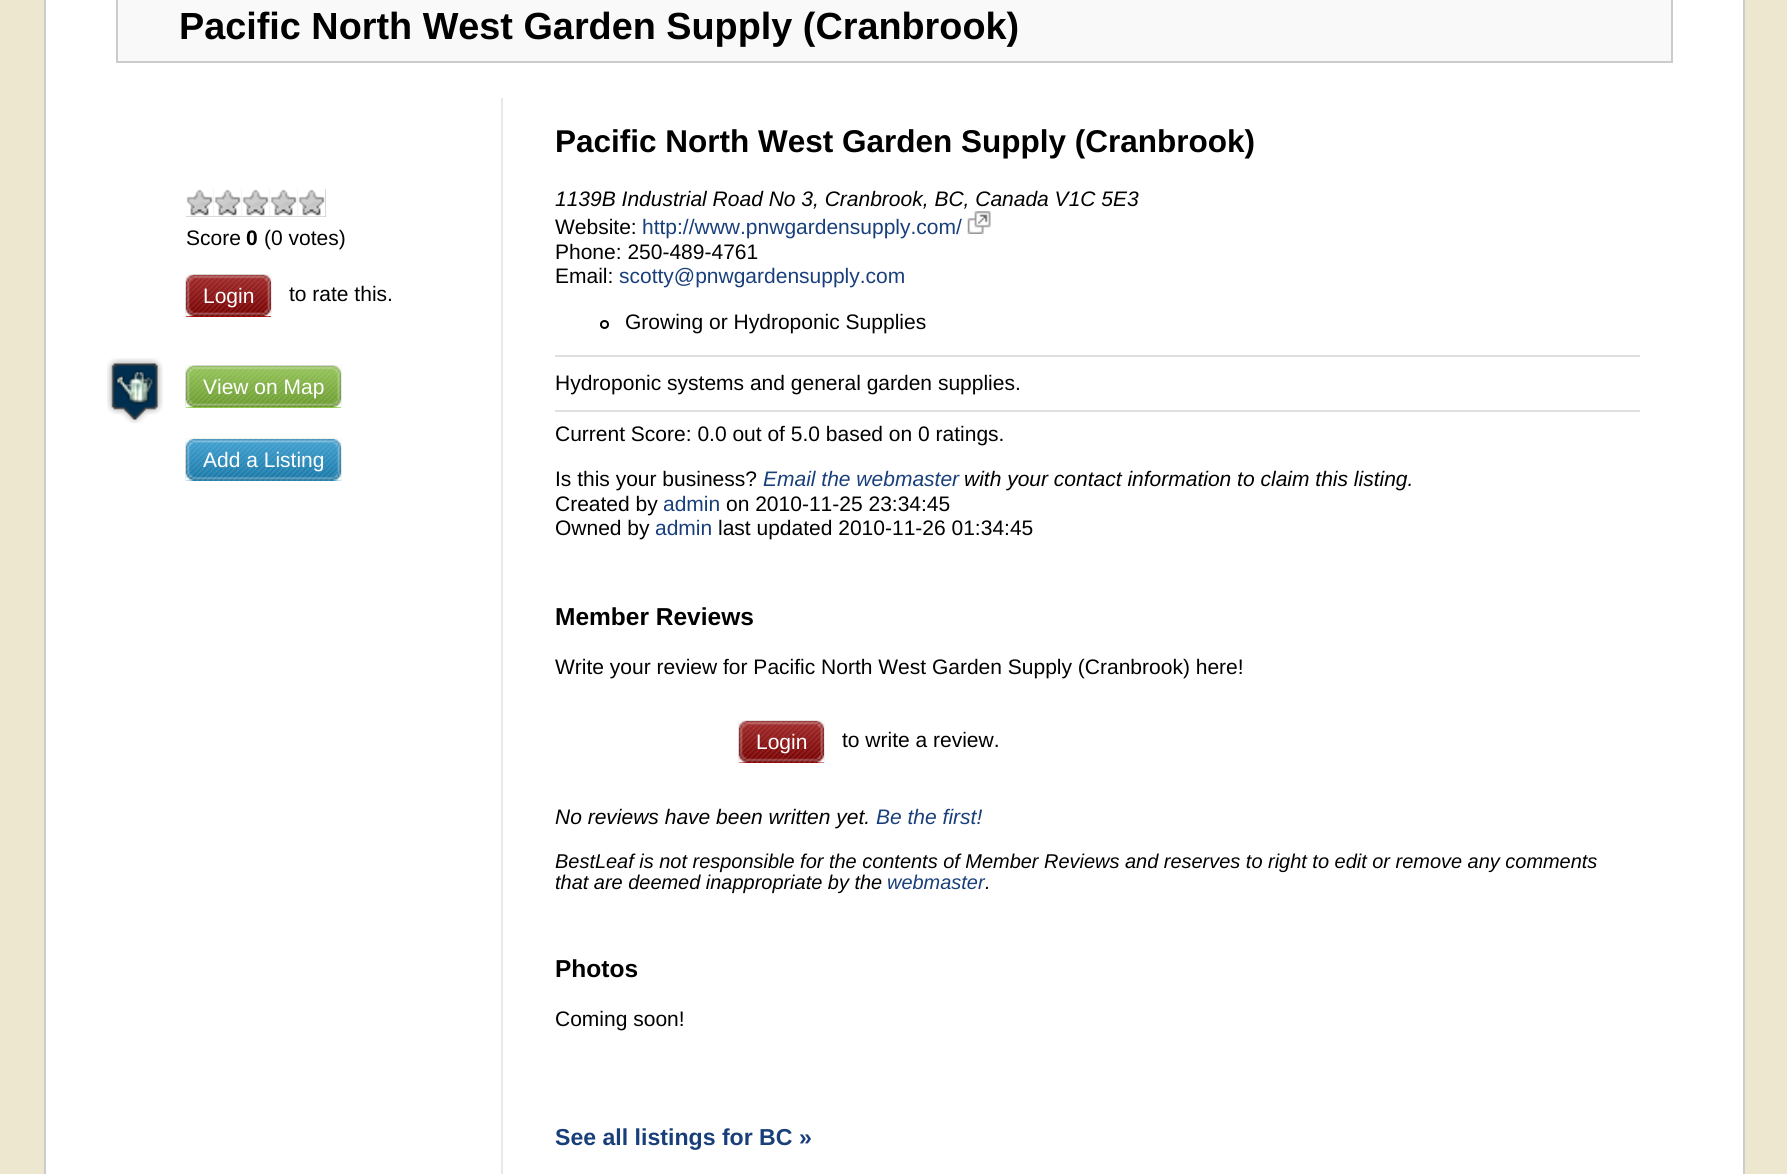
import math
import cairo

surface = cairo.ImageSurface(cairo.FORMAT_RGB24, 1787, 1174)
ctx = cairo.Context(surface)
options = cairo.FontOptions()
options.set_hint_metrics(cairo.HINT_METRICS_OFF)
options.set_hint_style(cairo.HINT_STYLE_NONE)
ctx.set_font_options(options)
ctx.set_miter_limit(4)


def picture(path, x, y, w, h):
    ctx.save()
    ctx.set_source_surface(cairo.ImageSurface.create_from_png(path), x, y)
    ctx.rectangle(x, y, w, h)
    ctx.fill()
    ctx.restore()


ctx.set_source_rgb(0.929, 0.906, 0.816)
ctx.paint()
ctx.set_source_rgb(1, 1, 1)
ctx.rectangle(46, 0, 1697, 1174)
ctx.fill()
ctx.set_source_rgb(0.8, 0.8, 0.8)
ctx.rectangle(1743, 0, 2, 1174)
ctx.fill()
ctx.rectangle(44, 0, 2, 1174)
ctx.fill()
ctx.set_source_rgb(0.973, 0.973, 0.973)
ctx.rectangle(117, -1, 1555, 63)
ctx.fill_preserve()
ctx.set_source_rgb(0.8, 0.8, 0.8)
ctx.stroke()
ctx.select_font_face("Liberation Sans", cairo.FONT_SLANT_NORMAL, cairo.FONT_WEIGHT_BOLD)
ctx.set_font_size(37.8)
ctx.set_source_rgb(0, 0, 0)
ctx.move_to(179, 39)
ctx.show_text("Pacific North West Garden Supply (Cranbrook)")
ctx.set_source_rgb(0.91, 0.91, 0.91)
ctx.rectangle(501, 98, 2, 1076)
ctx.fill()
ctx.set_source_rgb(0.8, 0.8, 0.8)
ctx.rectangle(186, 189, 140, 28)
ctx.fill()
picture("img1.png", 186, 189, 28, 28)
picture("img2.png", 213, 189, 29, 28)
picture("img3.png", 241, 189, 29, 28)
picture("img4.png", 269, 189, 29, 28)
picture("img5.png", 297, 189, 29, 28)
ctx.select_font_face("Liberation Sans")
ctx.set_font_size(21)
ctx.set_source_rgb(0, 0, 0)
ctx.move_to(186, 245)
ctx.show_text("Score")
ctx.select_font_face("Liberation Sans", cairo.FONT_SLANT_NORMAL, cairo.FONT_WEIGHT_BOLD)
ctx.move_to(246, 245)
ctx.show_text("0")
ctx.select_font_face("Liberation Sans")
ctx.move_to(264, 245)
ctx.show_text("(0 votes)")
ctx.set_source_rgb(0.667, 0, 0)
ctx.rectangle(186, 275, 85, 42)
ctx.fill()
picture("img6.png", 185, 274, 87, 43)
picture("img7.png", 185, 274, 10, 9)
picture("img8.png", 185, 283, 69, 34)
picture("img9.png", 194, 274, 78, 9)
ctx.set_source_rgb(1, 1, 1)
ctx.move_to(203, 303)
ctx.show_text("Login")
picture("img10.png", 253, 283, 19, 34)
ctx.set_source_rgb(0, 0, 0)
ctx.move_to(289, 301)
ctx.show_text("to rate this.")
picture("img11.png", 107, 358, 56, 65)
ctx.set_source_rgb(0.6, 0.867, 0.267)
ctx.rectangle(186, 366, 155, 42)
ctx.fill()
picture("img12.png", 185, 365, 157, 43)
picture("img13.png", 185, 365, 10, 9)
picture("img14.png", 185, 374, 139, 34)
picture("img15.png", 194, 365, 148, 9)
ctx.set_source_rgb(1, 1, 1)
ctx.move_to(203, 394)
ctx.show_text("View on Map")
picture("img16.png", 323, 374, 19, 34)
ctx.set_source_rgb(0.133, 0.667, 0.933)
ctx.rectangle(186, 439, 155, 42)
ctx.fill()
picture("img17.png", 185, 438, 157, 43)
picture("img18.png", 185, 438, 10, 10)
picture("img19.png", 185, 447, 139, 34)
ctx.set_source_rgb(1, 1, 1)
ctx.move_to(203, 467)
ctx.show_text("Add a Listing")
picture("img21.png", 323, 447, 19, 34)
picture("img20.png", 194, 438, 148, 10)
ctx.select_font_face("Liberation Sans", cairo.FONT_SLANT_NORMAL, cairo.FONT_WEIGHT_BOLD)
ctx.set_font_size(31.5)
ctx.set_source_rgb(0, 0, 0)
ctx.move_to(555, 152)
ctx.show_text("Pacific North West Garden Supply (Cranbrook)")
ctx.select_font_face("Liberation Sans", cairo.FONT_SLANT_ITALIC)
ctx.set_font_size(21)
ctx.move_to(555, 206)
ctx.show_text("1139B Industrial Road No 3, Cranbrook, BC, Canada V1C 5E3")
ctx.select_font_face("Liberation Sans")
ctx.move_to(555, 234)
ctx.show_text("Website:")
ctx.set_source_rgb(0.098, 0.247, 0.482)
ctx.move_to(642, 234)
ctx.show_text("http://www.pnwgardensupply.com/")
picture("img22.png", 967, 211, 24, 23)
ctx.set_source_rgb(0, 0, 0)
ctx.move_to(555, 259)
ctx.show_text("Phone: 250-489-4761")
ctx.move_to(555, 283)
ctx.show_text("Email:")
ctx.set_source_rgb(0.098, 0.247, 0.482)
ctx.move_to(619, 283)
ctx.show_text("scotty@pnwgardensupply.com")
ctx.new_path()
ctx.arc(604.5, 324.5, 3.5, 0, 2 * math.pi)
ctx.set_source_rgb(0, 0, 0)
ctx.stroke()
ctx.move_to(625, 329)
ctx.show_text("Growing or Hydroponic Supplies")
ctx.set_source_rgb(0.878, 0.878, 0.878)
ctx.rectangle(555, 355, 1085, 2)
ctx.fill()
ctx.rectangle(555, 410, 1085, 2)
ctx.fill()
ctx.set_source_rgb(0, 0, 0)
ctx.move_to(555, 390)
ctx.show_text("Hydroponic systems and general garden supplies.")
ctx.move_to(555, 441)
ctx.show_text("Current Score: 0.0 out of 5.0 based on 0 ratings.")
ctx.move_to(555, 486)
ctx.show_text("Is this your business?")
ctx.select_font_face("Liberation Sans", cairo.FONT_SLANT_ITALIC)
ctx.set_source_rgb(0.098, 0.247, 0.482)
ctx.move_to(763, 486)
ctx.show_text("Email the webmaster")
ctx.set_source_rgb(0, 0, 0)
ctx.move_to(964, 486)
ctx.show_text("with your contact information to claim this listing.")
ctx.select_font_face("Liberation Sans")
ctx.move_to(555, 511)
ctx.show_text("Created by")
ctx.set_source_rgb(0.098, 0.247, 0.482)
ctx.move_to(663, 511)
ctx.show_text("admin")
ctx.set_source_rgb(0, 0, 0)
ctx.move_to(726, 511)
ctx.show_text("on 2010-11-25 23:34:45")
ctx.move_to(555, 535)
ctx.show_text("Owned by")
ctx.set_source_rgb(0.098, 0.247, 0.482)
ctx.move_to(655, 535)
ctx.show_text("admin")
ctx.set_source_rgb(0, 0, 0)
ctx.move_to(718, 535)
ctx.show_text("last updated 2010-11-26 01:34:45")
ctx.select_font_face("Liberation Sans", cairo.FONT_SLANT_NORMAL, cairo.FONT_WEIGHT_BOLD)
ctx.set_font_size(24.5)
ctx.move_to(555, 625)
ctx.show_text("Member Reviews")
ctx.select_font_face("Liberation Sans")
ctx.set_font_size(21)
ctx.move_to(555, 674)
ctx.show_text("Write your review for Pacific North West Garden Supply (Cranbrook) here!")
ctx.set_source_rgb(0.667, 0, 0)
ctx.rectangle(739, 721, 85, 42)
ctx.fill()
picture("img23.png", 738, 720, 87, 43)
picture("img24.png", 738, 720, 10, 10)
picture("img25.png", 738, 729, 69, 34)
ctx.set_source_rgb(1, 1, 1)
ctx.move_to(756, 749)
ctx.show_text("Login")
picture("img27.png", 806, 729, 19, 34)
picture("img26.png", 747, 720, 78, 10)
ctx.set_source_rgb(0, 0, 0)
ctx.move_to(842, 747)
ctx.show_text("to write a review.")
ctx.select_font_face("Liberation Sans", cairo.FONT_SLANT_ITALIC)
ctx.move_to(555, 824)
ctx.show_text("No reviews have been written yet.")
ctx.set_source_rgb(0.098, 0.247, 0.482)
ctx.move_to(876, 824)
ctx.show_text("Be the first!")
ctx.set_font_size(19.95)
ctx.set_source_rgb(0, 0, 0)
ctx.move_to(555, 868)
ctx.show_text("BestLeaf is not responsible for the contents of Member Reviews and reserves to right to edit or remove any comments")
ctx.move_to(555, 889)
ctx.show_text("that are deemed inappropriate by the")
ctx.set_source_rgb(0.098, 0.247, 0.482)
ctx.move_to(887, 889)
ctx.show_text("webmaster")
ctx.set_source_rgb(0, 0, 0)
ctx.move_to(985, 889)
ctx.show_text(".")
ctx.select_font_face("Liberation Sans", cairo.FONT_SLANT_NORMAL, cairo.FONT_WEIGHT_BOLD)
ctx.set_font_size(24.5)
ctx.move_to(555, 977)
ctx.show_text("Photos")
ctx.select_font_face("Liberation Sans")
ctx.set_font_size(21)
ctx.move_to(555, 1026)
ctx.show_text("Coming soon!")
ctx.select_font_face("Liberation Sans", cairo.FONT_SLANT_NORMAL, cairo.FONT_WEIGHT_BOLD)
ctx.set_font_size(23.1)
ctx.set_source_rgb(0.098, 0.247, 0.482)
ctx.move_to(555, 1145)
ctx.show_text("See all listings for BC »")
surface.write_to_png("page.png")
